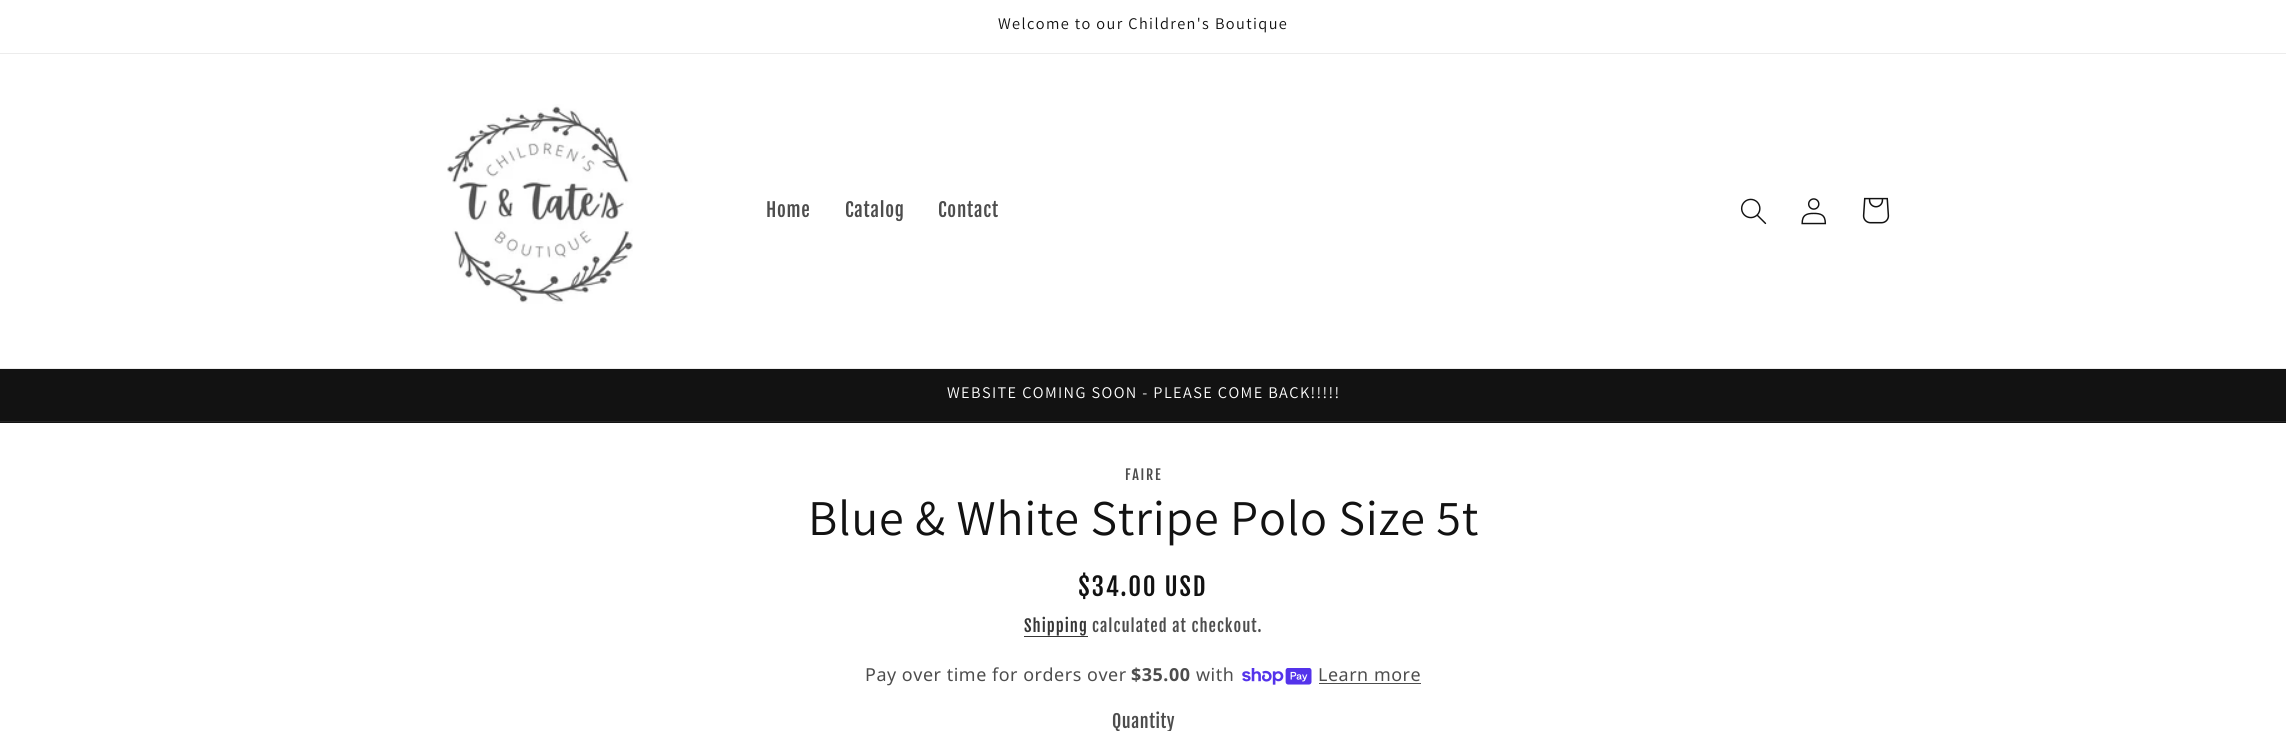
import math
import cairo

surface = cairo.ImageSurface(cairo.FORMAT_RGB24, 2286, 731)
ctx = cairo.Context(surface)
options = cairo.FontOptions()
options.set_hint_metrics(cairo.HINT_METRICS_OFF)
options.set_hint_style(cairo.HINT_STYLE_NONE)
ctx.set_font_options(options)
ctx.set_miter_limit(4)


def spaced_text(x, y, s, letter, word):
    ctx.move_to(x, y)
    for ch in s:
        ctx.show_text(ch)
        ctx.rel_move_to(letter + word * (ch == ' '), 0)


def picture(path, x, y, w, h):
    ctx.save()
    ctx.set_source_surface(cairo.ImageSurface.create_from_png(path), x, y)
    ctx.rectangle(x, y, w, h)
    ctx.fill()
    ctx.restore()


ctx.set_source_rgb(1, 1, 1)
ctx.paint()
ctx.set_source_rgb(0.925, 0.925, 0.925)
ctx.rectangle(0, 53, 2286, 1)
ctx.fill()
ctx.select_font_face("Assistant")
ctx.set_font_size(16.25)
ctx.set_source_rgb(0.071, 0.071, 0.071)
spaced_text(998, 29, "Welcome to our Children's Boutique", 1.4, 0)
ctx.set_source_rgb(0.925, 0.925, 0.925)
ctx.rectangle(0, 368, 2286, 1)
ctx.fill()
picture("img1.png", 447, 104, 186, 200)
ctx.select_font_face("Fjalla One")
ctx.set_font_size(19)
ctx.set_source_rgb(0.302, 0.302, 0.302)
spaced_text(766, 217, "Home", 0.75, 0)
spaced_text(845, 217, "Catalog", 0.75, 0)
spaced_text(938, 217, "Contact", 0.75, 0)
picture("img2.png", 1740, 198, 27, 27)
picture("img3.png", 1801, 198, 26, 27)
picture("img4.png", 1862, 197, 28, 27)
ctx.set_source_rgb(0.071, 0.071, 0.071)
ctx.rectangle(0, 369, 2286, 54)
ctx.fill()
ctx.set_source_rgb(0.145, 0.145, 0.145)
ctx.rectangle(0, 421, 2286, 1)
ctx.fill()
ctx.select_font_face("Assistant")
ctx.set_font_size(16.25)
ctx.set_source_rgb(1, 1, 1)
spaced_text(947, 398, "WEBSITE COMING SOON - PLEASE COME BACK!!!!!", 1.4, 0)
ctx.select_font_face("Fjalla One")
ctx.set_font_size(14)
ctx.set_source_rgb(0.302, 0.302, 0.302)
spaced_text(1125, 480, "FAIRE", 1.75, 0)
ctx.select_font_face("Assistant")
ctx.set_font_size(50)
ctx.set_source_rgb(0.071, 0.071, 0.071)
spaced_text(808, 535, "Blue & White Stripe Polo Size 5t", 0.75, 0)
ctx.select_font_face("Fjalla One")
ctx.set_font_size(24.75)
spaced_text(1078, 596, "$34.00 USD", 1.75, 0)
ctx.set_font_size(16.5)
ctx.set_source_rgb(0.212, 0.212, 0.212)
spaced_text(1024, 632, "Shipping", 1, 0)
ctx.rectangle(1024, 636, 64, 1)
ctx.fill()
ctx.set_source_rgb(0.302, 0.302, 0.302)
spaced_text(1092, 632, "calculated at checkout.", 1, 0)
ctx.select_font_face("Noto Sans")
ctx.set_font_size(17.9)
spaced_text(865, 681, "Pay over time for orders over", 0.55, 0)
ctx.select_font_face("Noto Sans", cairo.FONT_SLANT_NORMAL, cairo.FONT_WEIGHT_BOLD)
spaced_text(1131, 681, "$35.00", 0.55, 0)
ctx.select_font_face("Noto Sans")
spaced_text(1196, 681, "with", 0.55, 0)
picture("img5.png", 1242, 668, 70, 17)
spaced_text(1318, 681, "Learn more", 0.55, 0)
ctx.rectangle(1319, 683, 102, 1)
ctx.fill()
ctx.select_font_face("Fjalla One")
spaced_text(1112, 728, "Quantity", 0.55, 0)
surface.write_to_png("page.png")
